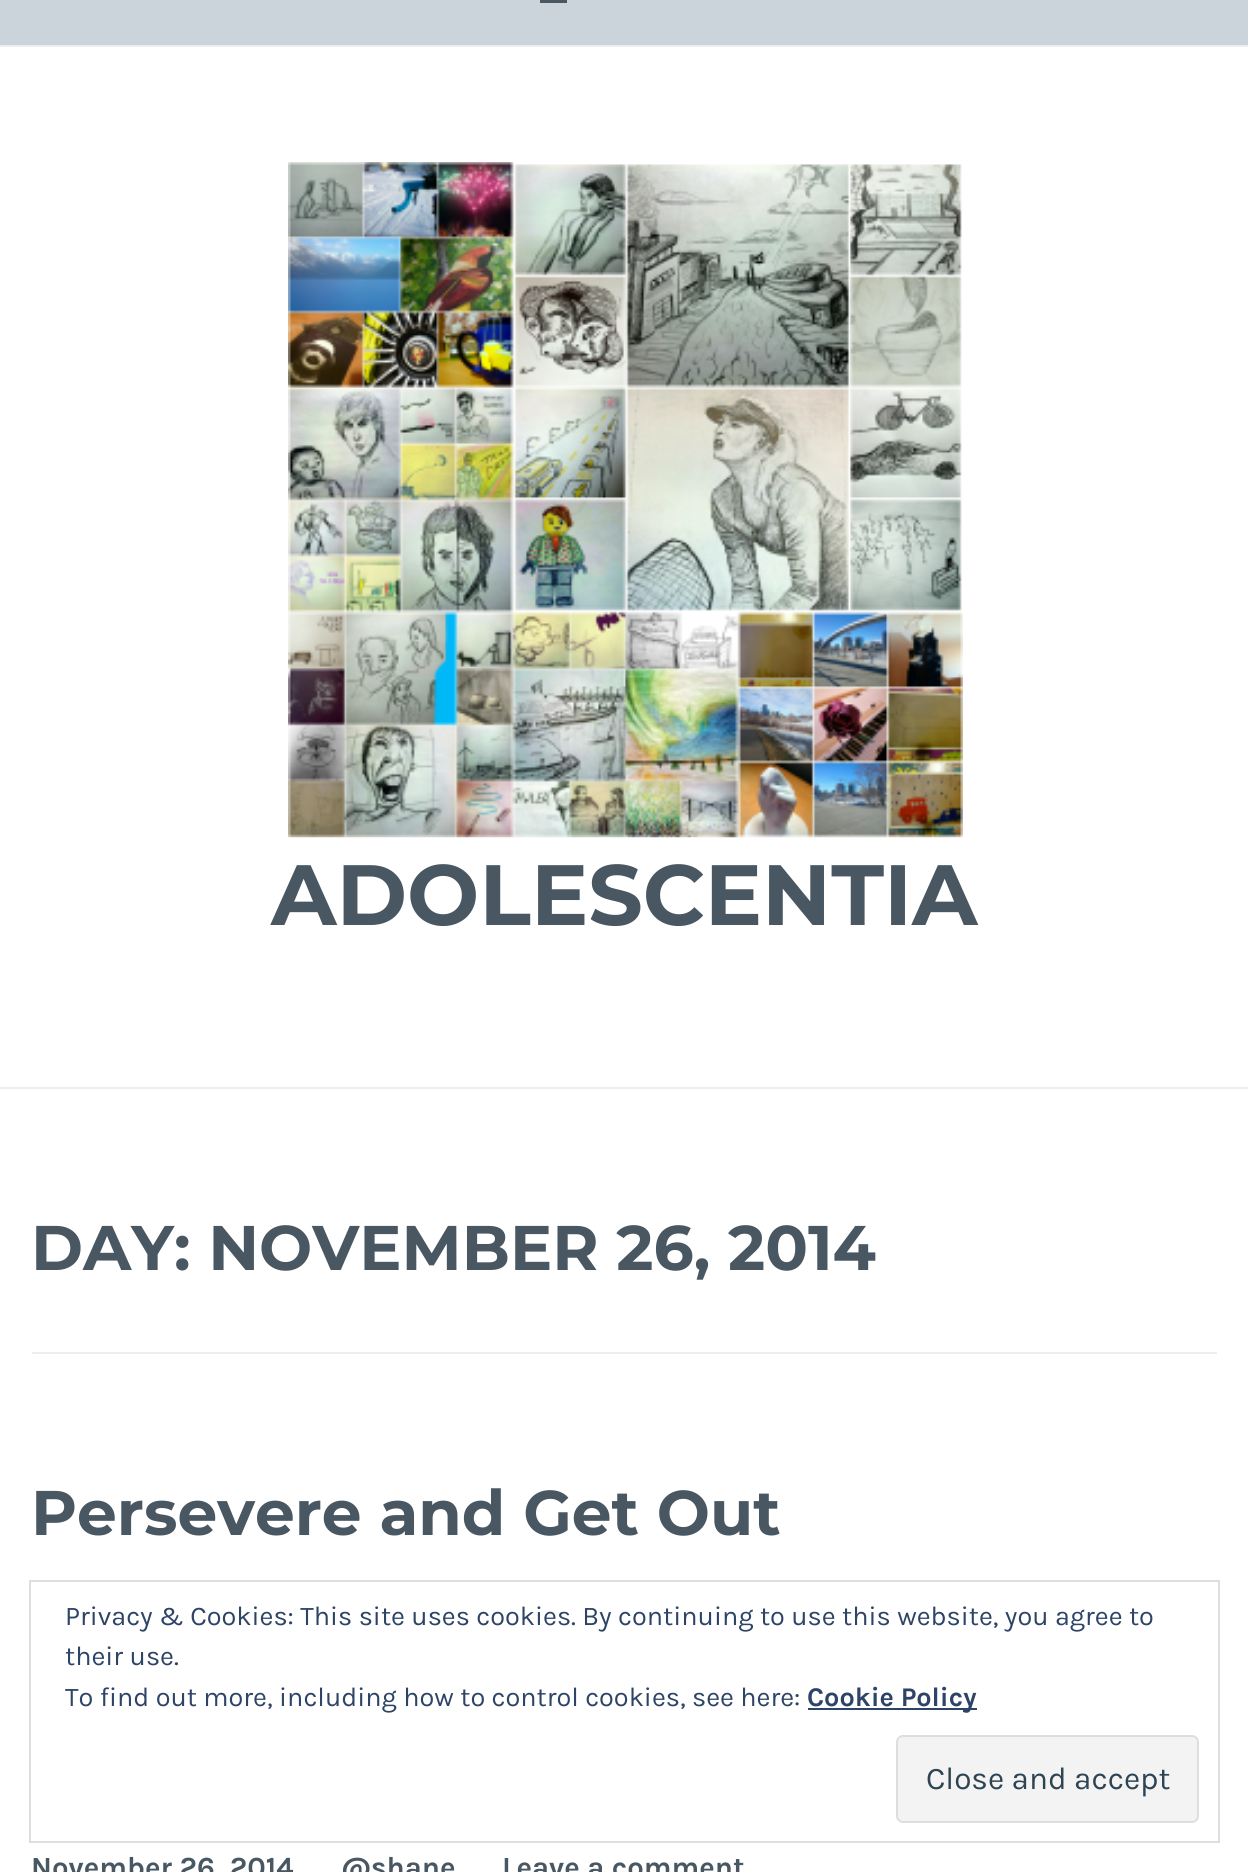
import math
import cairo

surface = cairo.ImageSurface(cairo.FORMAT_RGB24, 1248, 1872)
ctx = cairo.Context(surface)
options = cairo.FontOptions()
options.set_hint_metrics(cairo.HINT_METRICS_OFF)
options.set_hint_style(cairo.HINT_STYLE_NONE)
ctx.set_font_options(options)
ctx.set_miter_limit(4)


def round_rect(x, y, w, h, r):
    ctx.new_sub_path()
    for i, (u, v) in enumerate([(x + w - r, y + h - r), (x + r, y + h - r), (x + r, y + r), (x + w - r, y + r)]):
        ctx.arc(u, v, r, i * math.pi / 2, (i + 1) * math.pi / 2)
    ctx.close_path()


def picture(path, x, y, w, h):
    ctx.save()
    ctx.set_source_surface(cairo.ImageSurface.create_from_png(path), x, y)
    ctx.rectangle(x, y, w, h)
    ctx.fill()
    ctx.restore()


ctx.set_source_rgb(1, 1, 1)
ctx.paint()
ctx.set_source_rgb(0.933, 0.933, 0.933)
ctx.rectangle(0, 45, 1248, 2)
ctx.fill()
ctx.set_source_rgb(0.8, 0.831, 0.859)
ctx.rectangle(0, 0, 1248, 45)
ctx.fill()
ctx.set_source_rgb(0.286, 0.341, 0.384)
ctx.rectangle(540, 0, 27, 3)
ctx.fill()
picture("img1.png", 288, 162, 675, 676)
ctx.select_font_face("Montserrat", cairo.FONT_SLANT_NORMAL, cairo.FONT_WEIGHT_BOLD)
ctx.set_font_size(85.5)
ctx.move_to(271, 925)
ctx.show_text("ADOLESCENTIA")
ctx.set_source_rgb(0.933, 0.933, 0.933)
ctx.rectangle(0, 1087, 1248, 2)
ctx.fill()
ctx.rectangle(32, 1352, 1185, 2)
ctx.fill()
ctx.set_font_size(63)
ctx.set_source_rgb(0.286, 0.341, 0.384)
ctx.move_to(31, 1270)
ctx.show_text("DAY: NOVEMBER 26, 2014")
ctx.move_to(31, 1535)
ctx.show_text("Persevere and Get Out")
ctx.select_font_face("Karla", cairo.FONT_SLANT_NORMAL, cairo.FONT_WEIGHT_BOLD)
ctx.set_font_size(29.25)
ctx.move_to(31, 1877)
ctx.show_text("November 26, 2014")
ctx.move_to(341, 1877)
ctx.show_text("@shane")
ctx.move_to(502, 1877)
ctx.show_text("Leave a comment")
ctx.rectangle(30, 1581, 1189, 261)
ctx.set_source_rgb(0.871, 0.871, 0.871)
ctx.stroke()
ctx.select_font_face("Karla")
ctx.set_font_size(27)
ctx.set_source_rgb(0.18, 0.267, 0.404)
ctx.move_to(65, 1625)
ctx.show_text("Privacy & Cookies: This site uses cookies. By continuing to use this website, you agree to")
ctx.move_to(65, 1665)
ctx.show_text("their use.")
ctx.move_to(65, 1706)
ctx.show_text("To find out more, including how to control cookies, see here:")
ctx.rectangle(808, 1708, 169, 2)
ctx.fill()
ctx.select_font_face("Karla", cairo.FONT_SLANT_NORMAL, cairo.FONT_WEIGHT_BOLD)
ctx.move_to(807, 1706)
ctx.show_text("Cookie Policy")
ctx.set_source_rgb(0.953, 0.953, 0.953)
round_rect(897, 1736, 301, 86, 6)
ctx.fill_preserve()
ctx.set_source_rgb(0.871, 0.871, 0.871)
ctx.stroke()
ctx.select_font_face("Karla")
ctx.set_font_size(31.5)
ctx.set_source_rgb(0.18, 0.267, 0.325)
ctx.move_to(926, 1789)
ctx.show_text("Close and accept")
surface.write_to_png("page.png")
